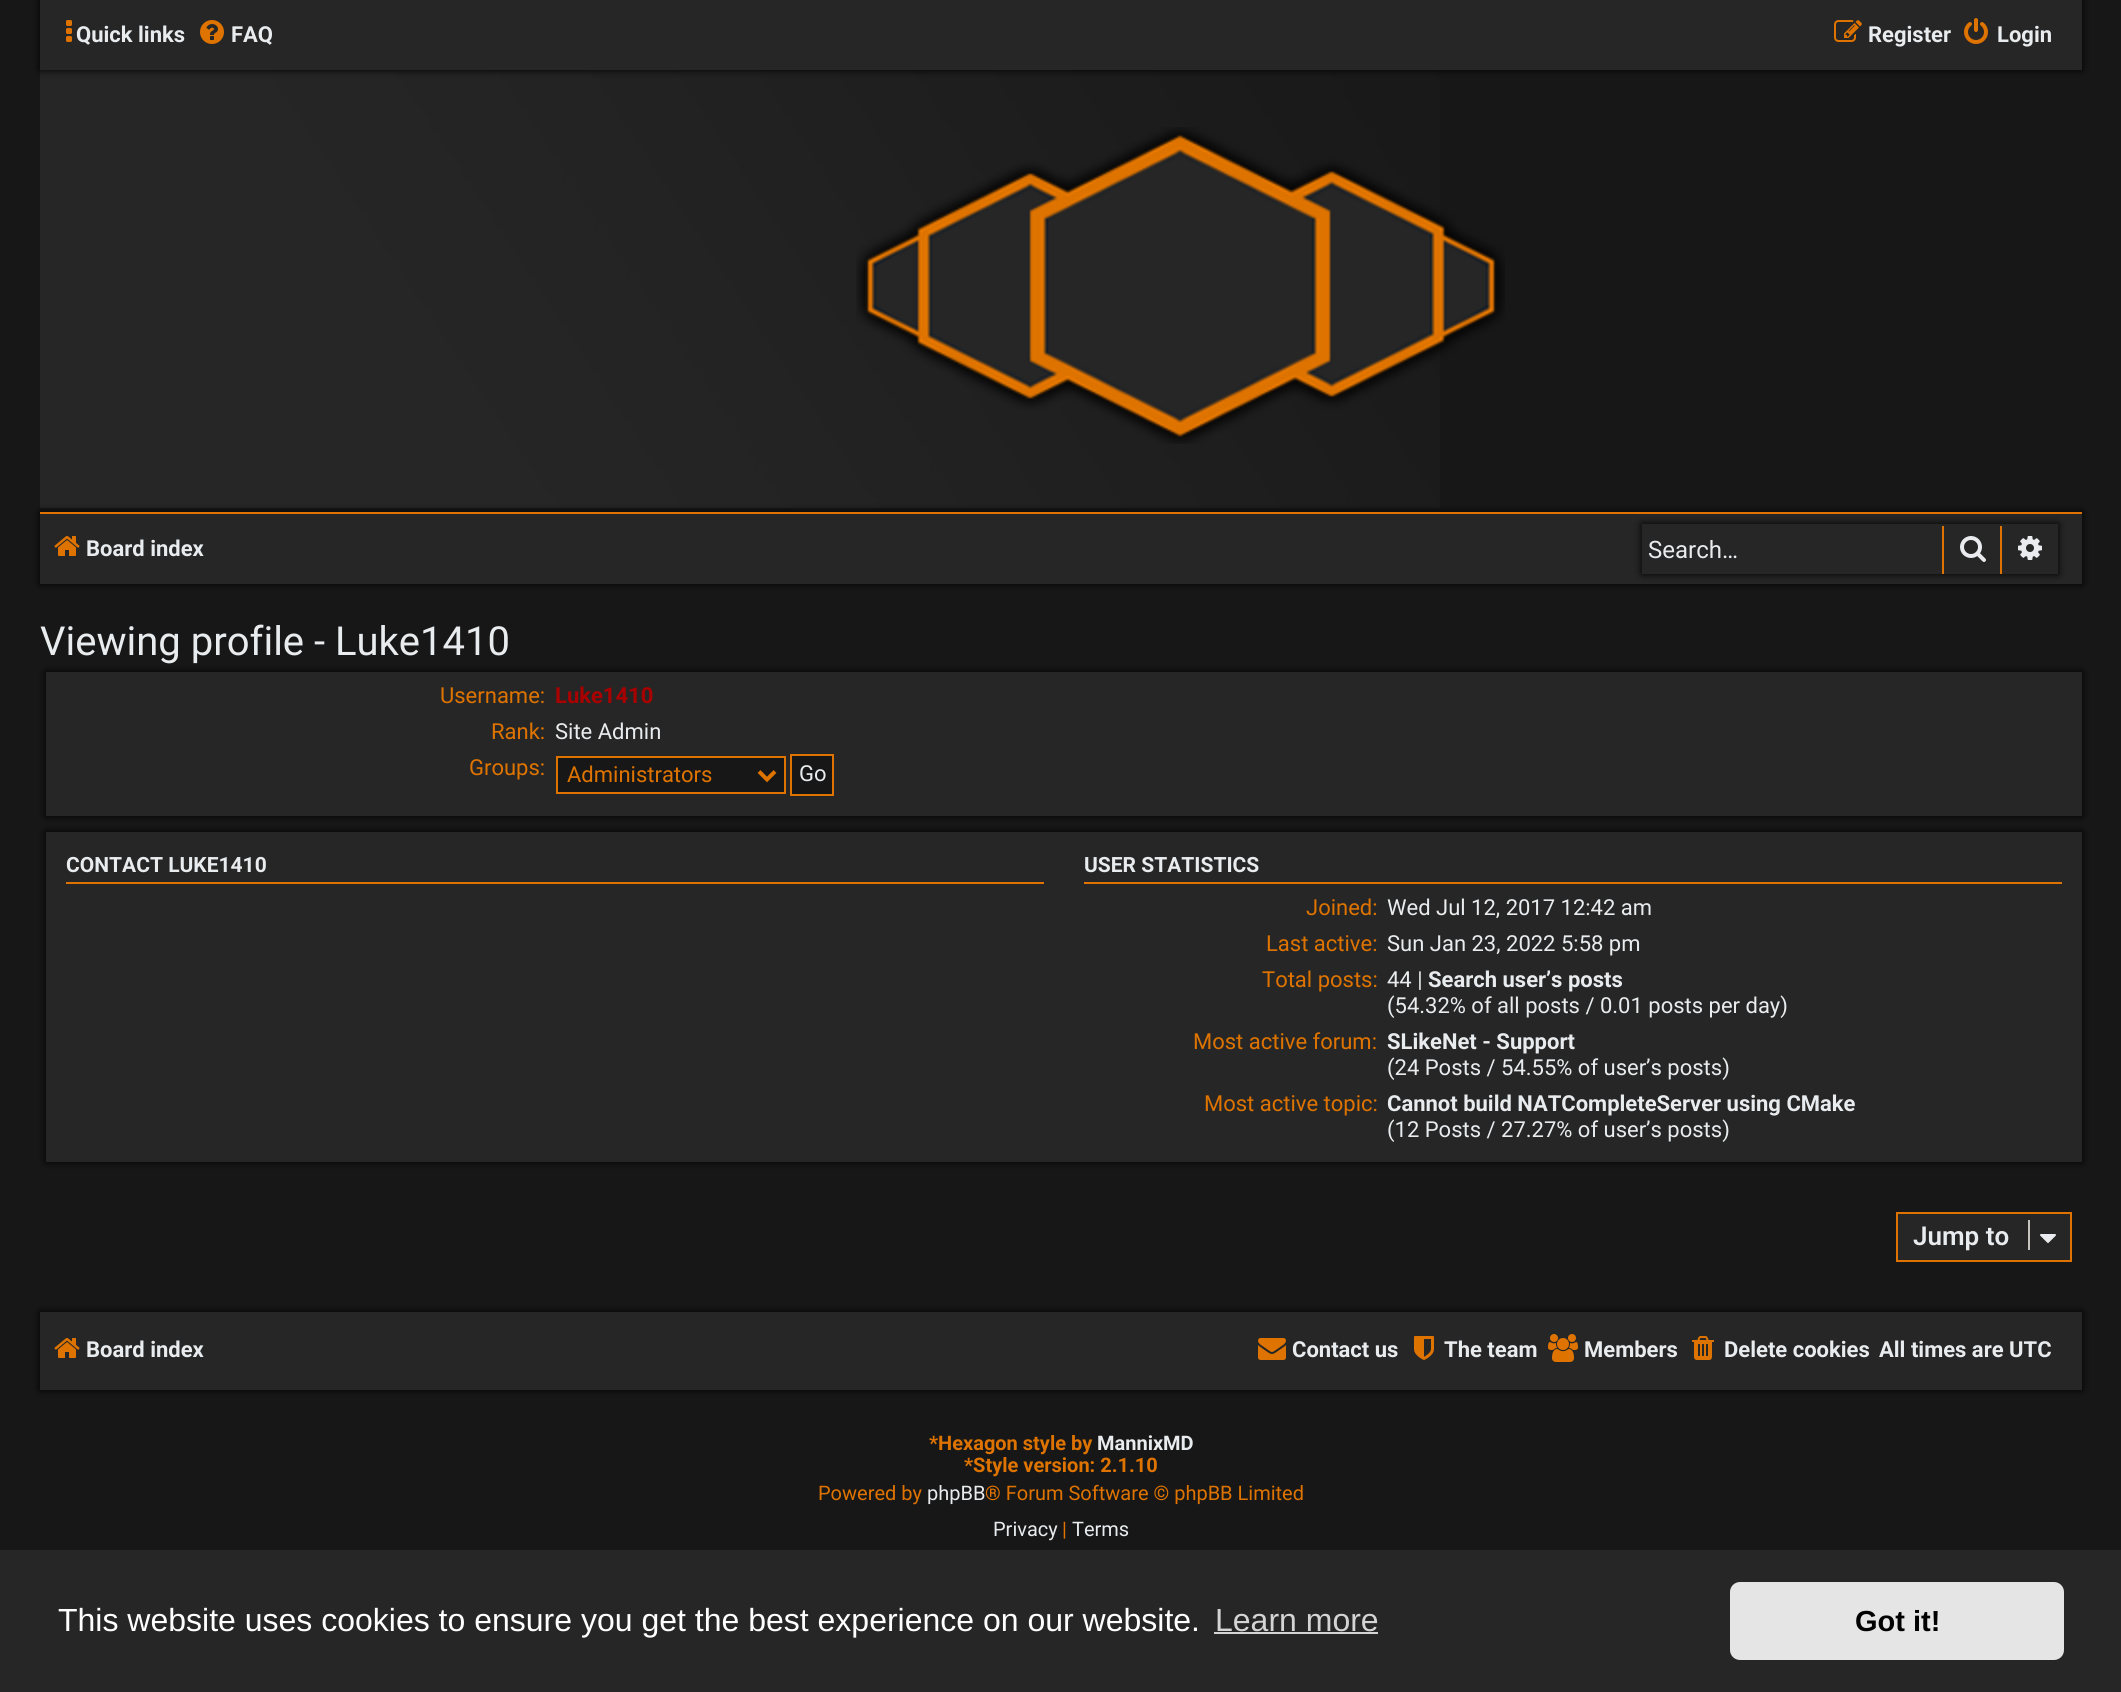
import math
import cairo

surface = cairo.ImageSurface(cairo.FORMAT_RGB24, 2121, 1692)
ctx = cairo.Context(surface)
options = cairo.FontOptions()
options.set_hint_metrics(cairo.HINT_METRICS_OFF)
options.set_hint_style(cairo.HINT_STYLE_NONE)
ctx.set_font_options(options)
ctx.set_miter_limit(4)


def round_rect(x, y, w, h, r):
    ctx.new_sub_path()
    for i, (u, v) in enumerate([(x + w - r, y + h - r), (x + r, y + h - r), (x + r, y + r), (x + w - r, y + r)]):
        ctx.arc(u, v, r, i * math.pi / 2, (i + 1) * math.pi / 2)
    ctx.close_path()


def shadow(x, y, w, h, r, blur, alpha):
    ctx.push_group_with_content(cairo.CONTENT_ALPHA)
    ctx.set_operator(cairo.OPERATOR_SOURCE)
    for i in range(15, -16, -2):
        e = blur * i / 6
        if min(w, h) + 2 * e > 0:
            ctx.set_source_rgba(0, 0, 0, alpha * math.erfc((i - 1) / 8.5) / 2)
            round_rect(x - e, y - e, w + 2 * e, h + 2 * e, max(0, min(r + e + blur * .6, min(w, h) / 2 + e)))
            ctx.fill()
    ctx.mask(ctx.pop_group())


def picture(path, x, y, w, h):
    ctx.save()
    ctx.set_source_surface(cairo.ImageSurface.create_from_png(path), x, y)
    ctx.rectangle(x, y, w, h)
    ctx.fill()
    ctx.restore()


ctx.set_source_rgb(0.09, 0.09, 0.09)
ctx.paint()
picture("img5.png", 40, 70, 1400, 438)
ctx.set_source_rgb(0, 0, 0)
shadow(40, 0, 2042, 70, 0, 4, 1)
ctx.set_source_rgb(0.149, 0.149, 0.149)
ctx.rectangle(40, 0, 2042, 70)
ctx.fill()
picture("img1.png", 66, 20, 6, 22)
ctx.select_font_face("Roboto", cairo.FONT_SLANT_NORMAL, cairo.FONT_WEIGHT_BOLD)
ctx.set_font_size(22)
ctx.set_source_rgb(0.914, 0.922, 0.933)
ctx.move_to(76, 42)
ctx.show_text("Quick links")
picture("img2.png", 200, 20, 24, 24)
ctx.move_to(231, 42)
ctx.show_text("FAQ")
picture("img3.png", 1834, 20, 28, 22)
ctx.move_to(1868, 42)
ctx.show_text("Register")
picture("img4.png", 1964, 18, 24, 26)
ctx.move_to(1997, 42)
ctx.show_text("Login")
picture("img6.png", 856, 127, 649, 317)
ctx.set_source_rgb(0, 0, 0)
shadow(40, 512, 2042, 72, 0, 4, 1)
ctx.set_source_rgb(0.149, 0.149, 0.149)
ctx.rectangle(40, 514, 2042, 70)
ctx.fill()
ctx.set_source_rgb(0.871, 0.451, 0)
ctx.rectangle(40, 512, 2042, 2)
ctx.fill()
picture("img7.png", 54, 536, 26, 20)
ctx.set_source_rgb(0.914, 0.922, 0.933)
ctx.move_to(86, 556)
ctx.show_text("Board index")
ctx.save()
ctx.set_fill_rule(cairo.FILL_RULE_EVEN_ODD)
ctx.new_path()
ctx.move_to(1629, 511)
ctx.line_to(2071, 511)
ctx.line_to(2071, 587)
ctx.line_to(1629, 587)
ctx.close_path()
ctx.move_to(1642, 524)
ctx.line_to(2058, 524)
ctx.line_to(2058, 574)
ctx.line_to(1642, 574)
ctx.close_path()
ctx.clip()
ctx.set_source_rgb(0, 0, 0)
shadow(1642, 524, 416, 50, 0, 4, 1)
ctx.restore()
ctx.select_font_face("Roboto")
ctx.set_font_size(24)
ctx.move_to(1648, 558)
ctx.show_text("Search…")
ctx.set_source_rgb(0.871, 0.451, 0)
ctx.rectangle(2000, 526, 2, 48)
ctx.fill()
ctx.rectangle(1942, 526, 2, 48)
ctx.fill()
picture("img8.png", 1960, 536, 26, 26)
picture("img9.png", 2018, 536, 24, 24)
ctx.set_source_rgb(0, 0, 0)
shadow(46, 672, 2036, 144, 0, 4, 1)
ctx.set_font_size(40)
ctx.set_source_rgb(0.914, 0.922, 0.933)
ctx.move_to(40, 655)
ctx.show_text("Viewing profile - Luke1410")
ctx.set_source_rgb(0.149, 0.149, 0.149)
ctx.rectangle(46, 672, 2036, 144)
ctx.fill()
ctx.set_font_size(22)
ctx.set_source_rgb(0.871, 0.451, 0)
ctx.move_to(440, 703)
ctx.show_text("Username:")
ctx.select_font_face("Roboto", cairo.FONT_SLANT_NORMAL, cairo.FONT_WEIGHT_BOLD)
ctx.set_source_rgb(0.667, 0, 0)
ctx.move_to(555, 703)
ctx.show_text("Luke1410")
ctx.select_font_face("Roboto")
ctx.set_source_rgb(0.871, 0.451, 0)
ctx.move_to(491, 739)
ctx.show_text("Rank:")
ctx.set_source_rgb(0.914, 0.922, 0.933)
ctx.move_to(555, 739)
ctx.show_text("Site Admin")
ctx.set_source_rgb(0.871, 0.451, 0)
ctx.move_to(469, 775)
ctx.show_text("Groups:")
ctx.set_source_rgb(0.09, 0.09, 0.09)
ctx.rectangle(557, 757, 228, 36)
ctx.fill_preserve()
ctx.set_source_rgb(0.871, 0.451, 0)
ctx.stroke()
ctx.new_path()
ctx.move_to(759, 771.5)
ctx.line_to(767, 779.5)
ctx.line_to(775, 771.5)
ctx.set_line_width(4)
ctx.stroke()
ctx.move_to(567, 782)
ctx.show_text("Administrators")
ctx.set_source_rgb(0.09, 0.09, 0.09)
ctx.rectangle(791, 755, 42, 40)
ctx.fill_preserve()
ctx.set_source_rgb(0.871, 0.451, 0)
ctx.set_line_width(2)
ctx.stroke()
ctx.set_source_rgb(0.914, 0.922, 0.933)
ctx.move_to(799, 781)
ctx.show_text("Go")
ctx.set_source_rgb(0, 0, 0)
shadow(46, 832, 2036, 330, 0, 4, 1)
ctx.set_source_rgb(0.149, 0.149, 0.149)
ctx.rectangle(46, 832, 2036, 330)
ctx.fill()
ctx.set_source_rgb(0.871, 0.451, 0)
ctx.rectangle(66, 882, 978, 2)
ctx.fill()
ctx.select_font_face("Roboto", cairo.FONT_SLANT_NORMAL, cairo.FONT_WEIGHT_BOLD)
ctx.set_font_size(21)
ctx.set_source_rgb(0.914, 0.922, 0.933)
ctx.move_to(66, 872)
ctx.show_text("CONTACT LUKE1410")
ctx.set_source_rgb(0.871, 0.451, 0)
ctx.rectangle(1084, 882, 978, 2)
ctx.fill()
ctx.set_source_rgb(0.914, 0.922, 0.933)
ctx.move_to(1084, 872)
ctx.show_text("USER STATISTICS")
ctx.select_font_face("Roboto")
ctx.set_font_size(22)
ctx.set_source_rgb(0.871, 0.451, 0)
ctx.move_to(1306, 915)
ctx.show_text("Joined:")
ctx.set_source_rgb(0.914, 0.922, 0.933)
ctx.move_to(1387, 915)
ctx.show_text("Wed Jul 12, 2017 12:42 am")
ctx.set_source_rgb(0.871, 0.451, 0)
ctx.move_to(1266, 951)
ctx.show_text("Last active:")
ctx.set_source_rgb(0.914, 0.922, 0.933)
ctx.move_to(1387, 951)
ctx.show_text("Sun Jan 23, 2022 5:58 pm")
ctx.set_source_rgb(0.871, 0.451, 0)
ctx.move_to(1262, 987)
ctx.show_text("Total posts:")
ctx.set_source_rgb(0.914, 0.922, 0.933)
ctx.move_to(1387, 987)
ctx.show_text("44 |")
ctx.select_font_face("Roboto", cairo.FONT_SLANT_NORMAL, cairo.FONT_WEIGHT_BOLD)
ctx.move_to(1428, 987)
ctx.show_text("Search user’s posts")
ctx.select_font_face("Roboto")
ctx.move_to(1387, 1013)
ctx.show_text("(54.32% of all posts / 0.01 posts per day)")
ctx.set_source_rgb(0.871, 0.451, 0)
ctx.move_to(1193, 1049)
ctx.show_text("Most active forum:")
ctx.select_font_face("Roboto", cairo.FONT_SLANT_NORMAL, cairo.FONT_WEIGHT_BOLD)
ctx.set_source_rgb(0.914, 0.922, 0.933)
ctx.move_to(1387, 1049)
ctx.show_text("SLikeNet - Support")
ctx.select_font_face("Roboto")
ctx.move_to(1387, 1075)
ctx.show_text("(24 Posts / 54.55% of user’s posts)")
ctx.set_source_rgb(0.871, 0.451, 0)
ctx.move_to(1204, 1111)
ctx.show_text("Most active topic:")
ctx.select_font_face("Roboto", cairo.FONT_SLANT_NORMAL, cairo.FONT_WEIGHT_BOLD)
ctx.set_source_rgb(0.914, 0.922, 0.933)
ctx.move_to(1387, 1111)
ctx.show_text("Cannot build NATCompleteServer using CMake")
ctx.select_font_face("Roboto")
ctx.move_to(1387, 1137)
ctx.show_text("(12 Posts / 27.27% of user’s posts)")
ctx.set_source_rgb(0.149, 0.149, 0.149)
ctx.rectangle(1897, 1213, 174, 48)
ctx.fill_preserve()
ctx.set_source_rgb(0.871, 0.451, 0)
ctx.stroke()
ctx.select_font_face("Roboto SemiBold")
ctx.set_font_size(26)
ctx.set_source_rgb(0.914, 0.922, 0.933)
ctx.move_to(1913, 1245)
ctx.show_text("Jump to")
ctx.set_source_rgb(0.78, 0.765, 0.749)
ctx.rectangle(2028, 1220, 2, 30)
ctx.fill()
picture("img10.png", 2040, 1234, 16, 9)
ctx.set_source_rgb(0, 0, 0)
shadow(40, 1312, 2042, 78, 0, 4, 1)
ctx.set_source_rgb(0.149, 0.149, 0.149)
ctx.rectangle(40, 1312, 2042, 78)
ctx.fill()
picture("img7.png", 54, 1338, 26, 20)
ctx.select_font_face("Roboto", cairo.FONT_SLANT_NORMAL, cairo.FONT_WEIGHT_BOLD)
ctx.set_font_size(22)
ctx.set_source_rgb(0.914, 0.922, 0.933)
ctx.move_to(86, 1357)
ctx.show_text("Board index")
picture("img11.png", 1258, 1338, 28, 22)
ctx.move_to(1292, 1357)
ctx.show_text("Contact us")
picture("img12.png", 1414, 1336, 20, 24)
ctx.move_to(1444, 1357)
ctx.show_text("The team")
picture("img13.png", 1548, 1334, 30, 28)
ctx.move_to(1584, 1357)
ctx.show_text("Members")
picture("img14.png", 1692, 1336, 22, 24)
ctx.move_to(1724, 1357)
ctx.show_text("Delete cookies")
ctx.move_to(1879, 1357)
ctx.show_text("All times are UTC")
ctx.set_font_size(20)
ctx.set_source_rgb(0.871, 0.451, 0)
ctx.move_to(929, 1450)
ctx.show_text("*Hexagon style by")
ctx.set_source_rgb(0.914, 0.922, 0.933)
ctx.move_to(1097, 1450)
ctx.show_text("MannixMD")
ctx.set_source_rgb(0.871, 0.451, 0)
ctx.move_to(964, 1472)
ctx.show_text("*Style version: 2.1.10")
ctx.select_font_face("Roboto")
ctx.move_to(818, 1500)
ctx.show_text("Powered by")
ctx.set_source_rgb(0.914, 0.922, 0.933)
ctx.move_to(927, 1500)
ctx.show_text("phpBB")
ctx.set_source_rgb(0.871, 0.451, 0)
ctx.move_to(985, 1500)
ctx.show_text("® Forum Software © phpBB Limited")
ctx.set_source_rgb(0.914, 0.922, 0.933)
ctx.move_to(993, 1536)
ctx.show_text("Privacy")
ctx.set_source_rgb(0.871, 0.451, 0)
ctx.move_to(1062, 1536)
ctx.show_text("|")
ctx.set_source_rgb(0.914, 0.922, 0.933)
ctx.move_to(1072, 1536)
ctx.show_text("Terms")
ctx.set_source_rgb(0.149, 0.149, 0.149)
ctx.rectangle(0, 1550, 2121, 142)
ctx.fill()
ctx.select_font_face("Liberation Sans")
ctx.set_font_size(32)
ctx.set_source_rgb(1, 1, 1)
ctx.move_to(58, 1631)
ctx.show_text("This website uses cookies to ensure you get the best experience on our website.")
ctx.set_source_rgb(0.831, 0.831, 0.831)
ctx.move_to(1215, 1631)
ctx.show_text("Learn more")
ctx.rectangle(1214, 1632, 164, 2)
ctx.fill()
ctx.set_source_rgb(0.898, 0.898, 0.898)
round_rect(1730, 1582, 334, 78, 10)
ctx.fill()
ctx.select_font_face("Liberation Sans", cairo.FONT_SLANT_NORMAL, cairo.FONT_WEIGHT_BOLD)
ctx.set_font_size(29)
ctx.set_source_rgb(0, 0, 0)
ctx.move_to(1855, 1631)
ctx.show_text("Got it!")
surface.write_to_png("page.png")
